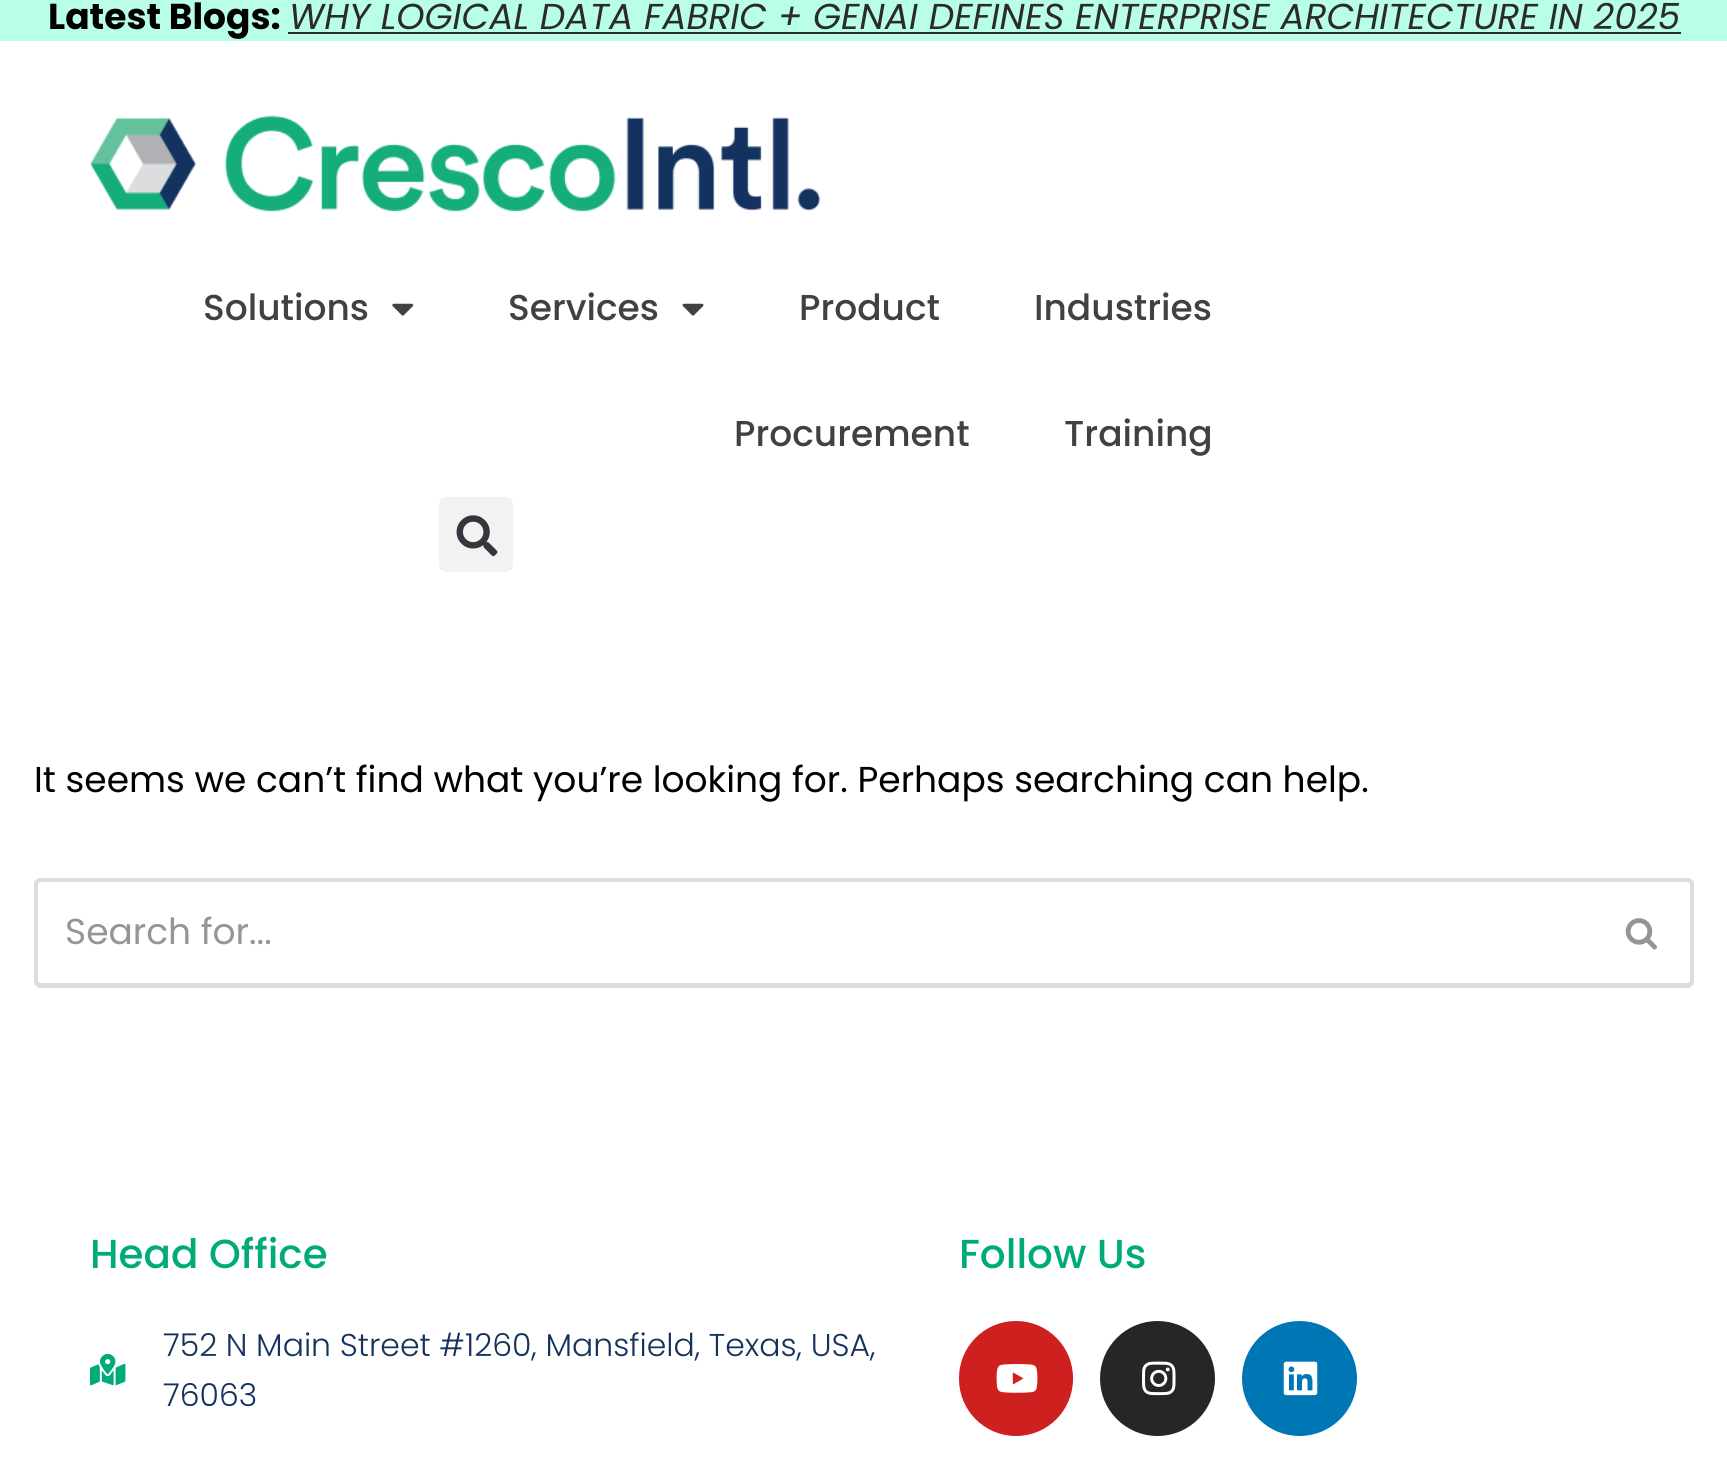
import math
import cairo

surface = cairo.ImageSurface(cairo.FORMAT_RGB24, 1727, 1471)
ctx = cairo.Context(surface)
options = cairo.FontOptions()
options.set_hint_metrics(cairo.HINT_METRICS_OFF)
options.set_hint_style(cairo.HINT_STYLE_NONE)
ctx.set_font_options(options)
ctx.set_miter_limit(4)


def round_rect(x, y, w, h, r):
    ctx.new_sub_path()
    for i, (u, v) in enumerate([(x + w - r, y + h - r), (x + r, y + h - r), (x + r, y + r), (x + w - r, y + r)]):
        ctx.arc(u, v, r, i * math.pi / 2, (i + 1) * math.pi / 2)
    ctx.close_path()


def picture(path, x, y, w, h):
    ctx.save()
    ctx.set_source_surface(cairo.ImageSurface.create_from_png(path), x, y)
    ctx.rectangle(x, y, w, h)
    ctx.fill()
    ctx.restore()


ctx.set_source_rgb(1, 1, 1)
ctx.paint()
ctx.set_source_rgb(0.725, 1, 0.91)
ctx.rectangle(0, 0, 1727, 41)
ctx.fill()
ctx.select_font_face("Poppins", cairo.FONT_SLANT_NORMAL, cairo.FONT_WEIGHT_BOLD)
ctx.set_font_size(36)
ctx.set_source_rgb(0, 0, 0)
ctx.move_to(48, 29)
ctx.show_text("Latest Blogs:")
ctx.select_font_face("Poppins", cairo.FONT_SLANT_ITALIC)
ctx.set_source_rgb(0.169, 0.169, 0.169)
ctx.move_to(289, 29)
ctx.show_text("WHY LOGICAL DATA FABRIC + GENAI DEFINES ENTERPRISE ARCHITECTURE IN 2025")
ctx.rectangle(288, 32, 1393, 2)
ctx.fill()
picture("img1.png", 90, 115, 731, 97)
ctx.select_font_face("Poppins Medium")
ctx.set_source_rgb(0.255, 0.255, 0.255)
ctx.move_to(203, 320)
ctx.show_text("Solutions")
picture("img2.png", 392, 303, 22, 13)
ctx.move_to(508, 320)
ctx.show_text("Services")
picture("img3.png", 682, 303, 22, 13)
ctx.move_to(799, 320)
ctx.show_text("Product")
ctx.move_to(1034, 320)
ctx.show_text("Industries")
ctx.move_to(734, 446)
ctx.show_text("Procurement")
ctx.move_to(1064, 446)
ctx.show_text("Training")
ctx.set_source_rgb(0.949, 0.949, 0.949)
round_rect(439, 497, 74, 75, 7)
ctx.fill()
picture("img4.png", 456, 515, 42, 42)
ctx.select_font_face("Poppins")
ctx.set_source_rgb(0, 0, 0)
ctx.move_to(34, 792)
ctx.show_text("It seems we can’t find what you’re looking for. Perhaps searching can help.")
ctx.set_source_rgb(0.867, 0.867, 0.867)
ctx.set_fill_rule(cairo.FILL_RULE_EVEN_ODD)
ctx.new_path()
ctx.move_to(40, 878)
ctx.line_to(1593, 878)
ctx.line_to(1593, 988)
ctx.line_to(40, 988)
ctx.curve_to(37, 988, 34, 985, 34, 981)
ctx.line_to(34, 884)
ctx.curve_to(34, 881, 37, 878, 40, 878)
ctx.close_path()
ctx.move_to(40, 882)
ctx.line_to(1593, 882)
ctx.line_to(1593, 983)
ctx.line_to(40, 983)
ctx.curve_to(39, 983, 38, 982, 38, 981)
ctx.line_to(38, 884)
ctx.curve_to(38, 883, 39, 882, 40, 882)
ctx.close_path()
ctx.fill()
ctx.set_source_rgb(0.584, 0.584, 0.584)
ctx.move_to(65, 944)
ctx.show_text("Search for...")
ctx.set_source_rgb(0.867, 0.867, 0.867)
ctx.new_path()
ctx.move_to(1593, 878)
ctx.line_to(1688, 878)
ctx.curve_to(1691, 878, 1694, 881, 1694, 884)
ctx.line_to(1694, 981)
ctx.curve_to(1694, 985, 1691, 988, 1688, 988)
ctx.line_to(1593, 988)
ctx.close_path()
ctx.move_to(1593, 882)
ctx.line_to(1688, 882)
ctx.curve_to(1689, 882, 1690, 883, 1690, 884)
ctx.line_to(1690, 981)
ctx.curve_to(1690, 982, 1689, 983, 1688, 983)
ctx.line_to(1593, 983)
ctx.close_path()
ctx.fill()
picture("img5.png", 1625, 918, 32, 32)
ctx.select_font_face("Poppins Medium")
ctx.set_font_size(40.5)
ctx.set_source_rgb(0, 0.671, 0.475)
ctx.move_to(90, 1268)
ctx.show_text("Head Office")
picture("img6.png", 90, 1353, 36, 33)
ctx.select_font_face("Poppins Light")
ctx.set_font_size(31.5)
ctx.set_source_rgb(0.082, 0.196, 0.361)
ctx.move_to(163, 1356)
ctx.show_text("752 N Main Street #1260, Mansfield, Texas, USA,")
ctx.move_to(163, 1406)
ctx.show_text("76063")
ctx.select_font_face("Poppins Medium")
ctx.set_font_size(40.5)
ctx.set_source_rgb(0, 0.671, 0.475)
ctx.move_to(959, 1268)
ctx.show_text("Follow Us")
ctx.set_source_rgb(0.804, 0.125, 0.122)
round_rect(959, 1321, 114, 115, 57)
ctx.fill()
picture("img7.png", 996, 1364, 42, 29)
ctx.set_source_rgb(0.149, 0.149, 0.149)
ctx.arc(1157.5, 1378.5, 57.5, 0, 2 * math.pi)
ctx.fill()
picture("img8.png", 1142, 1361, 34, 35)
ctx.set_source_rgb(0, 0.467, 0.71)
ctx.arc(1299.5, 1378.5, 57.5, 0, 2 * math.pi)
ctx.fill()
picture("img9.png", 1283, 1361, 35, 35)
surface.write_to_png("page.png")
